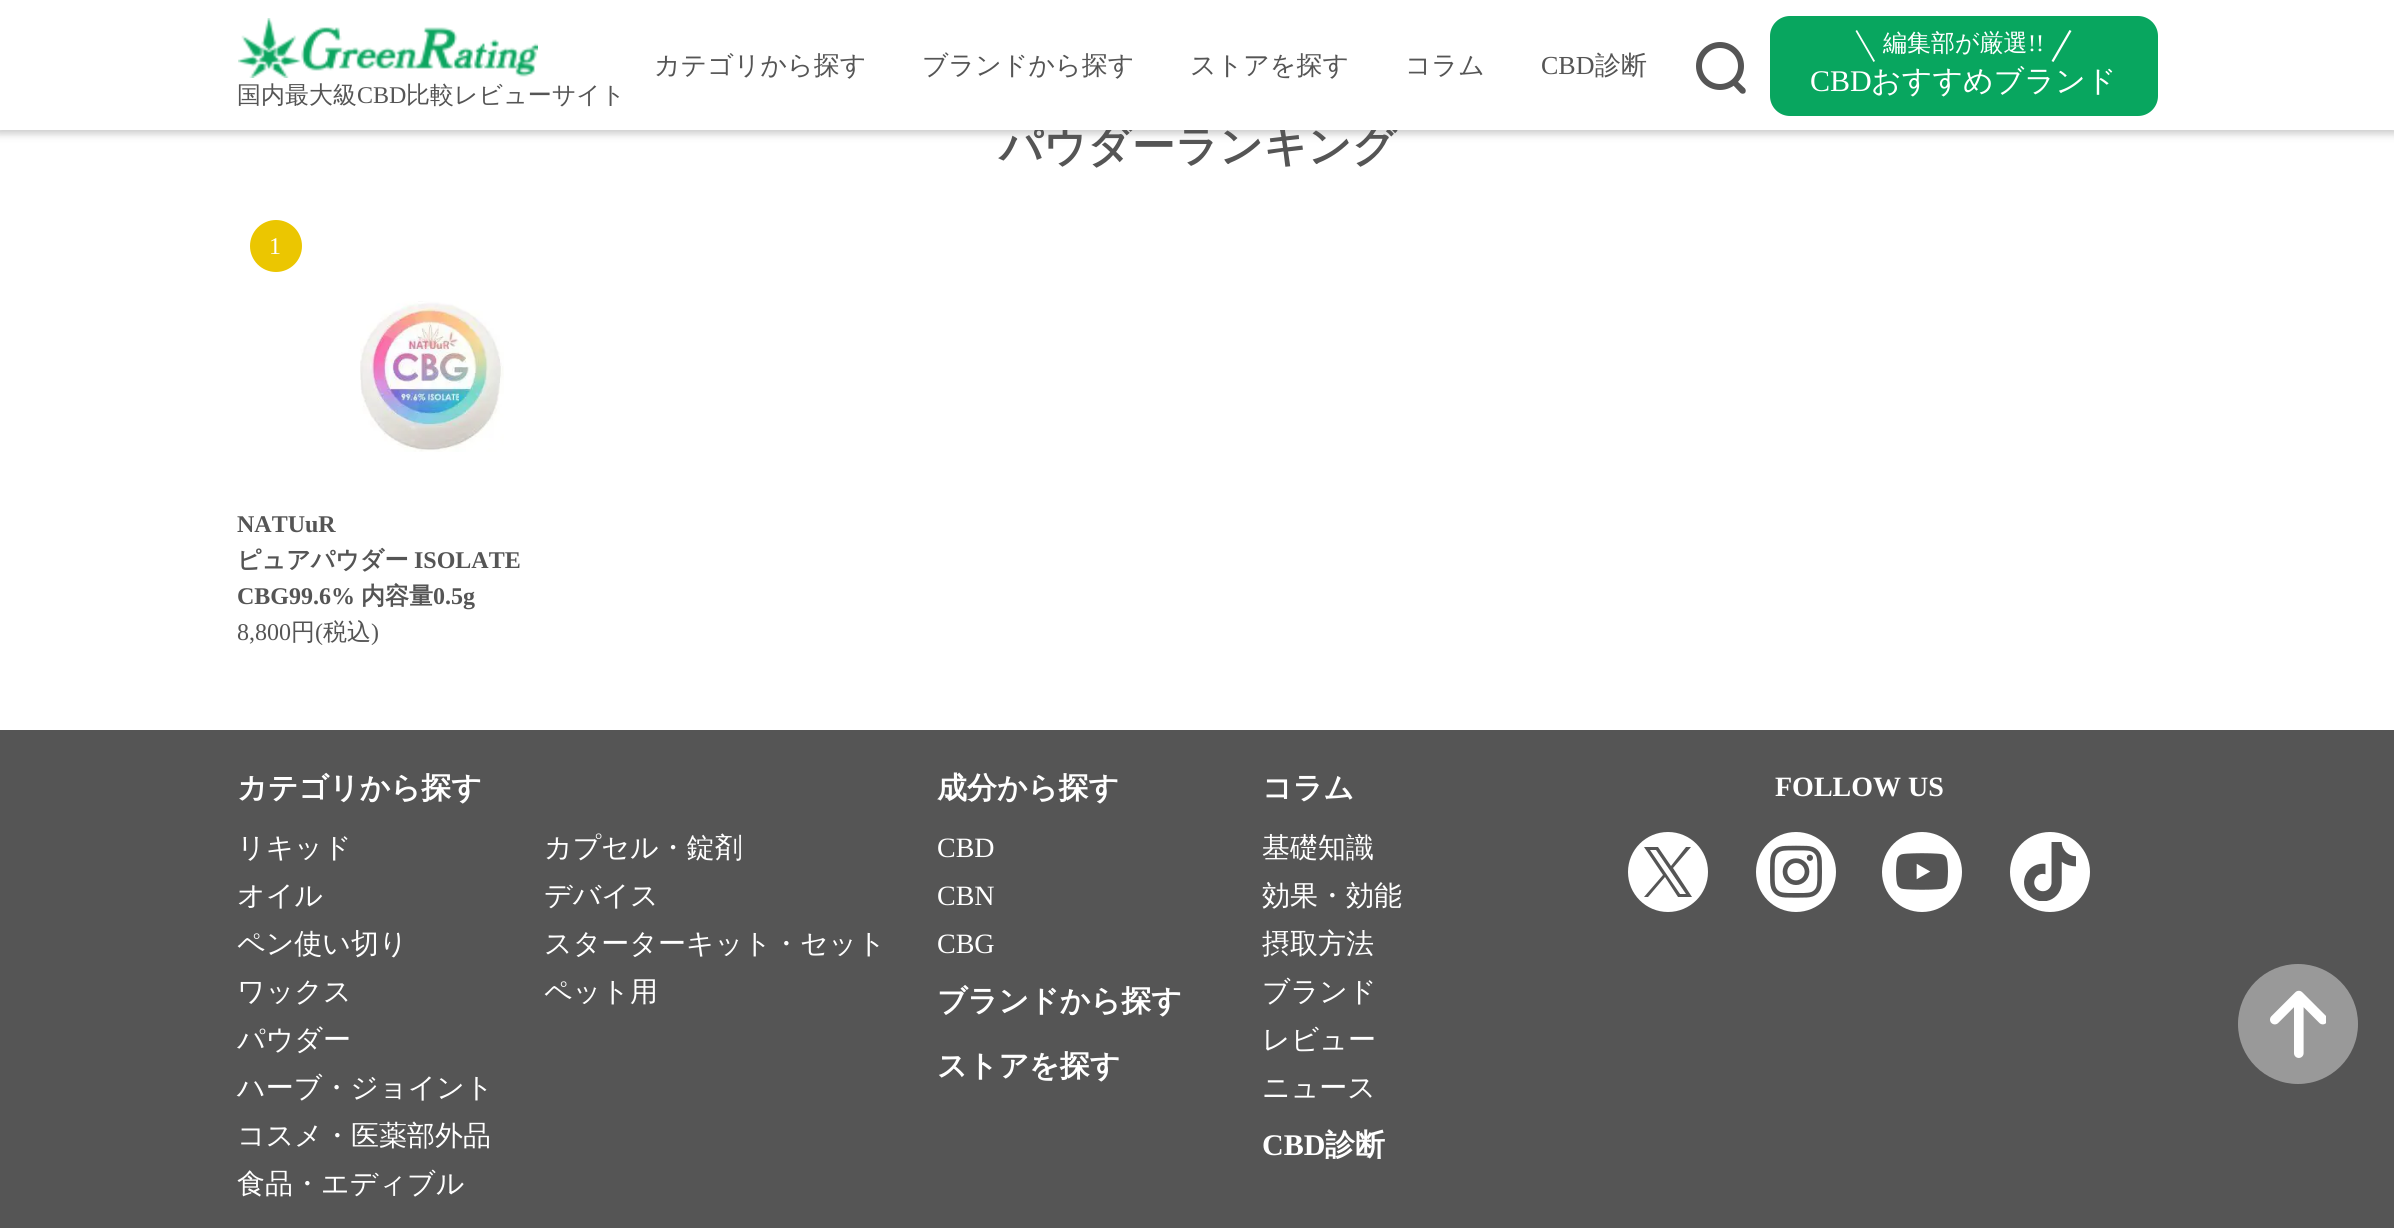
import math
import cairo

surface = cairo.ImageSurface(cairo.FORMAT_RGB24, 2394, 1228)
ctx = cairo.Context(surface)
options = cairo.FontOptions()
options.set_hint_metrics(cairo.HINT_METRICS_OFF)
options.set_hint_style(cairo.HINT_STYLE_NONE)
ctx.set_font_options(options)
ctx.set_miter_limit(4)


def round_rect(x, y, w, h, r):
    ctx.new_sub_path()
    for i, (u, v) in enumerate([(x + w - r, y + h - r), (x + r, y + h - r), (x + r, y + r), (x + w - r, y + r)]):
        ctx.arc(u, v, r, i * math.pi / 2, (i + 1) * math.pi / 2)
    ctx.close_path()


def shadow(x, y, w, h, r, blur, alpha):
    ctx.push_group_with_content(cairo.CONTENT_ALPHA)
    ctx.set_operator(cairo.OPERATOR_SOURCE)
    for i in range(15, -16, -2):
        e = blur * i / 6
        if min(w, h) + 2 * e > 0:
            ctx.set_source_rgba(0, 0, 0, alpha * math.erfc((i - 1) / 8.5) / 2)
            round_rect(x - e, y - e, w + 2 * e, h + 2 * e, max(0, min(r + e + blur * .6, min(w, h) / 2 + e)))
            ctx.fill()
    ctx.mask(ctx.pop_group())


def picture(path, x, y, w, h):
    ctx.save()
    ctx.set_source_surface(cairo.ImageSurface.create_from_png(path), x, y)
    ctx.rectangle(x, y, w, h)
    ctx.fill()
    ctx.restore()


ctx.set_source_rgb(1, 1, 1)
ctx.paint()
ctx.set_source_rgb(0, 0, 0)
shadow(-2, 0, 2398, 134, 0, 4, 0.2)
ctx.select_font_face("WenQuanYi Zen Hei", cairo.FONT_SLANT_NORMAL, cairo.FONT_WEIGHT_BOLD)
ctx.set_font_size(43.25)
ctx.set_source_rgb(0.333, 0.333, 0.333)
ctx.move_to(999, 161)
ctx.show_text("パウダーランキング")
ctx.set_source_rgb(1, 1, 1)
ctx.rectangle(0, 0, 2394, 130)
ctx.fill()
ctx.select_font_face("WenQuanYi Zen Hei Medium")
ctx.set_font_size(26)
ctx.set_source_rgb(0.333, 0.333, 0.333)
ctx.move_to(654, 74)
ctx.show_text("カテゴリから探す")
ctx.move_to(922, 74)
ctx.show_text("ブランドから探す")
ctx.move_to(1190, 74)
ctx.show_text("ストアを探す")
ctx.move_to(1405, 74)
ctx.show_text("コラム")
ctx.select_font_face("Liberation Serif")
ctx.move_to(1541, 74)
ctx.show_text("CBD")
ctx.select_font_face("WenQuanYi Zen Hei Medium")
ctx.move_to(1595, 74)
ctx.show_text("診断")
ctx.set_source_rgb(0.035, 0.651, 0.373)
round_rect(1770, 16, 388, 100, 20)
ctx.fill()
ctx.set_source_rgb(1, 1, 1)
ctx.new_path()
ctx.move_to(1857, 30)
ctx.line_to(1875, 61)
ctx.line_to(1873.5, 62)
ctx.line_to(1855.5, 31)
ctx.close_path()
ctx.fill()
ctx.set_font_size(24)
ctx.move_to(1883, 51)
ctx.show_text("編集部が厳選")
ctx.select_font_face("Liberation Serif")
ctx.move_to(2028, 51)
ctx.show_text("!!")
ctx.new_path()
ctx.move_to(2051.5, 61)
ctx.line_to(2069.5, 30)
ctx.line_to(2071.5, 31)
ctx.line_to(2053.5, 62)
ctx.close_path()
ctx.fill()
ctx.set_font_size(30)
ctx.move_to(1810, 91)
ctx.show_text("CBD")
ctx.select_font_face("WenQuanYi Zen Hei Medium")
ctx.move_to(1871, 91)
ctx.show_text("おすすめブランド")
picture("img1.png", 238, 18, 300, 60)
ctx.set_font_size(24)
ctx.set_source_rgb(0.333, 0.333, 0.333)
ctx.move_to(237, 103)
ctx.show_text("国内最大級")
ctx.select_font_face("Liberation Serif")
ctx.move_to(357, 103)
ctx.show_text("CBD")
ctx.select_font_face("WenQuanYi Zen Hei Medium")
ctx.move_to(406, 103)
ctx.show_text("比較レビューサイト")
ctx.new_path()
ctx.arc(1720, 66, 21, 0, 2 * math.pi)
ctx.set_line_width(6)
ctx.stroke()
ctx.new_path()
ctx.move_to(1735.5, 79.5)
ctx.line_to(1745, 88.5)
ctx.curve_to(1746, 90, 1746, 91.5, 1745, 93)
ctx.curve_to(1743.5, 94, 1742, 94, 1740.5, 93)
ctx.line_to(1731.5, 83.5)
ctx.close_path()
ctx.fill()
ctx.set_source_rgb(0.918, 0.776, 0.004)
ctx.arc(276, 246, 26, 0, 2 * math.pi)
ctx.fill()
ctx.select_font_face("Liberation Serif")
ctx.set_source_rgb(1, 1, 1)
ctx.move_to(269, 254)
ctx.show_text("1")
picture("img2.png", 360, 301, 144, 151)
ctx.select_font_face("Liberation Serif", cairo.FONT_SLANT_NORMAL, cairo.FONT_WEIGHT_BOLD)
ctx.set_source_rgb(0.333, 0.333, 0.333)
ctx.move_to(237, 532)
ctx.show_text("NATUuR")
ctx.select_font_face("WenQuanYi Zen Hei", cairo.FONT_SLANT_NORMAL, cairo.FONT_WEIGHT_BOLD)
ctx.move_to(237, 568)
ctx.show_text("ピュアパウダー")
ctx.select_font_face("Liberation Serif", cairo.FONT_SLANT_NORMAL, cairo.FONT_WEIGHT_BOLD)
ctx.move_to(414, 568)
ctx.show_text("ISOLATE")
ctx.move_to(237, 604)
ctx.show_text("CBG99.6%")
ctx.select_font_face("WenQuanYi Zen Hei", cairo.FONT_SLANT_NORMAL, cairo.FONT_WEIGHT_BOLD)
ctx.move_to(361, 604)
ctx.show_text("内容量")
ctx.select_font_face("Liberation Serif", cairo.FONT_SLANT_NORMAL, cairo.FONT_WEIGHT_BOLD)
ctx.move_to(433, 604)
ctx.show_text("0.5g")
ctx.select_font_face("Liberation Serif")
ctx.move_to(237, 640)
ctx.show_text("8,800")
ctx.select_font_face("WenQuanYi Zen Hei Medium")
ctx.move_to(291, 640)
ctx.show_text("円")
ctx.select_font_face("Liberation Serif")
ctx.move_to(315, 640)
ctx.show_text("(")
ctx.select_font_face("WenQuanYi Zen Hei Medium")
ctx.move_to(323, 640)
ctx.show_text("税込")
ctx.select_font_face("Liberation Serif")
ctx.move_to(371, 640)
ctx.show_text(")")
ctx.rectangle(0, 730, 2394, 498)
ctx.fill()
ctx.select_font_face("WenQuanYi Zen Hei", cairo.FONT_SLANT_NORMAL, cairo.FONT_WEIGHT_BOLD)
ctx.set_font_size(30)
ctx.set_source_rgb(1, 1, 1)
ctx.move_to(237, 798)
ctx.show_text("カテゴリから探す")
ctx.select_font_face("WenQuanYi Zen Hei Medium")
ctx.set_font_size(28)
ctx.move_to(237, 857)
ctx.show_text("リキッド")
ctx.move_to(544, 857)
ctx.show_text("カプセル・錠剤")
ctx.move_to(237, 905)
ctx.show_text("オイル")
ctx.move_to(544, 905)
ctx.show_text("デバイス")
ctx.move_to(237, 953)
ctx.show_text("ペン使い切り")
ctx.move_to(544, 953)
ctx.show_text("スターターキット・セット")
ctx.move_to(237, 1001)
ctx.show_text("ワックス")
ctx.move_to(544, 1001)
ctx.show_text("ペット用")
ctx.move_to(237, 1049)
ctx.show_text("パウダー")
ctx.move_to(237, 1097)
ctx.show_text("ハーブ・ジョイント")
ctx.move_to(237, 1145)
ctx.show_text("コスメ・医薬部外品")
ctx.move_to(237, 1193)
ctx.show_text("食品・エディブル")
ctx.select_font_face("WenQuanYi Zen Hei", cairo.FONT_SLANT_NORMAL, cairo.FONT_WEIGHT_BOLD)
ctx.set_font_size(30)
ctx.move_to(937, 798)
ctx.show_text("成分から探す")
ctx.select_font_face("Liberation Serif")
ctx.set_font_size(28)
ctx.move_to(937, 857)
ctx.show_text("CBD")
ctx.move_to(937, 905)
ctx.show_text("CBN")
ctx.move_to(937, 953)
ctx.show_text("CBG")
ctx.select_font_face("WenQuanYi Zen Hei", cairo.FONT_SLANT_NORMAL, cairo.FONT_WEIGHT_BOLD)
ctx.set_font_size(30)
ctx.move_to(937, 1011)
ctx.show_text("ブランドから探す")
ctx.move_to(937, 1076)
ctx.show_text("ストアを探す")
ctx.move_to(1262, 798)
ctx.show_text("コラム")
ctx.select_font_face("WenQuanYi Zen Hei Medium")
ctx.set_font_size(28)
ctx.move_to(1262, 857)
ctx.show_text("基礎知識")
ctx.move_to(1262, 905)
ctx.show_text("効果・効能")
ctx.move_to(1262, 953)
ctx.show_text("摂取方法")
ctx.move_to(1262, 1001)
ctx.show_text("ブランド")
ctx.move_to(1262, 1049)
ctx.show_text("レビュー")
ctx.move_to(1262, 1097)
ctx.show_text("ニュース")
ctx.select_font_face("Liberation Serif", cairo.FONT_SLANT_NORMAL, cairo.FONT_WEIGHT_BOLD)
ctx.set_font_size(30)
ctx.move_to(1262, 1155)
ctx.show_text("CBD")
ctx.select_font_face("WenQuanYi Zen Hei", cairo.FONT_SLANT_NORMAL, cairo.FONT_WEIGHT_BOLD)
ctx.move_to(1325, 1155)
ctx.show_text("診断")
ctx.select_font_face("Liberation Serif", cairo.FONT_SLANT_NORMAL, cairo.FONT_WEIGHT_BOLD)
ctx.set_font_size(28)
ctx.move_to(1775, 796)
ctx.show_text("FOLLOW US")
ctx.new_path()
ctx.arc(1668, 872, 40, 0, 2 * math.pi)
ctx.fill()
ctx.set_source_rgb(0.333, 0.333, 0.333)
ctx.new_path()
ctx.move_to(1673, 868)
ctx.line_to(1691, 847)
ctx.line_to(1686, 847)
ctx.line_to(1671, 866)
ctx.line_to(1658, 847)
ctx.line_to(1644, 847)
ctx.line_to(1663, 875)
ctx.line_to(1644, 897)
ctx.line_to(1648, 897)
ctx.line_to(1665, 877)
ctx.line_to(1678, 897)
ctx.line_to(1692, 897)
ctx.close_path()
ctx.move_to(1667, 875)
ctx.line_to(1650, 850)
ctx.line_to(1656, 850)
ctx.line_to(1686, 894)
ctx.line_to(1680, 894)
ctx.close_path()
ctx.fill()
ctx.set_source_rgb(1, 1, 1)
ctx.arc(1796, 872, 40, 0, 2 * math.pi)
ctx.fill()
picture("img3.png", 1770, 845, 52, 53)
ctx.arc(1922, 872, 40, 0, 2 * math.pi)
ctx.fill()
picture("img4.png", 1896, 853, 52, 37)
ctx.arc(2050, 872, 40, 0, 2 * math.pi)
ctx.fill()
picture("img5.png", 2024, 842, 52, 59)
ctx.set_source_rgb(0.6, 0.6, 0.6)
ctx.arc(2298, 1024, 60, 0, 2 * math.pi)
ctx.fill()
picture("img6.png", 2270, 990, 56, 68)
surface.write_to_png("page.png")
